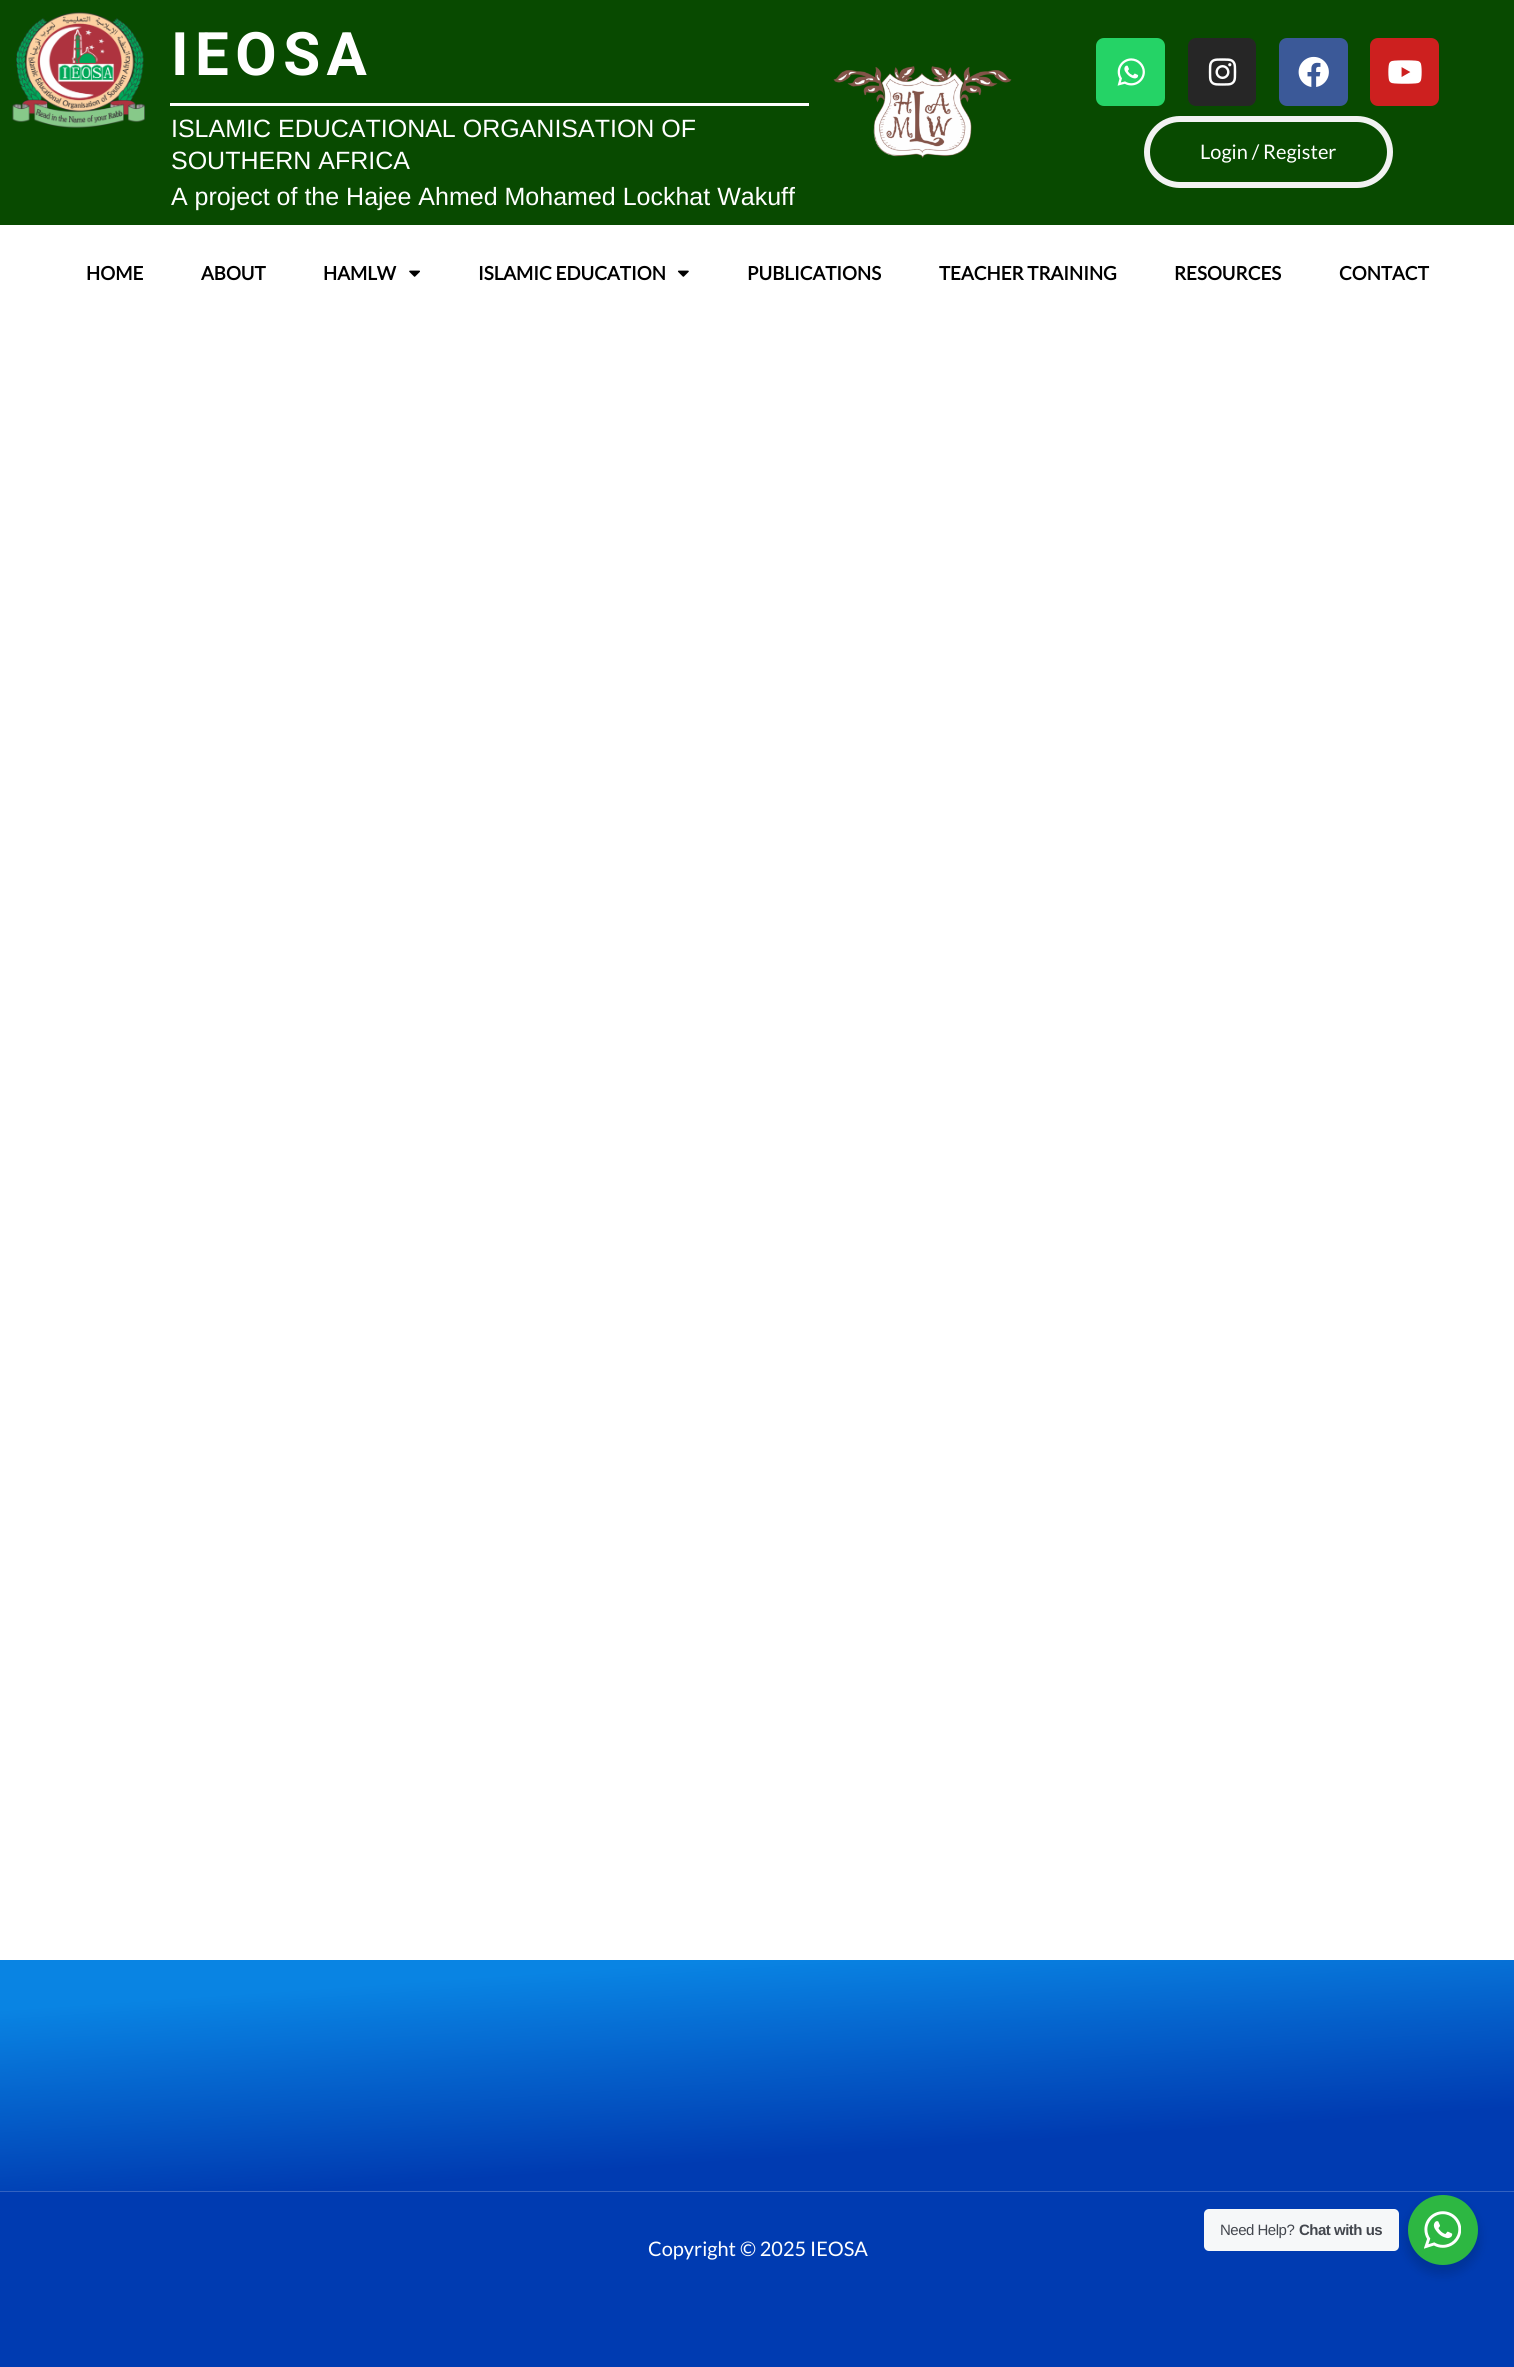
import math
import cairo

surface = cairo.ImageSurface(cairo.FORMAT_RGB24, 1514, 2367)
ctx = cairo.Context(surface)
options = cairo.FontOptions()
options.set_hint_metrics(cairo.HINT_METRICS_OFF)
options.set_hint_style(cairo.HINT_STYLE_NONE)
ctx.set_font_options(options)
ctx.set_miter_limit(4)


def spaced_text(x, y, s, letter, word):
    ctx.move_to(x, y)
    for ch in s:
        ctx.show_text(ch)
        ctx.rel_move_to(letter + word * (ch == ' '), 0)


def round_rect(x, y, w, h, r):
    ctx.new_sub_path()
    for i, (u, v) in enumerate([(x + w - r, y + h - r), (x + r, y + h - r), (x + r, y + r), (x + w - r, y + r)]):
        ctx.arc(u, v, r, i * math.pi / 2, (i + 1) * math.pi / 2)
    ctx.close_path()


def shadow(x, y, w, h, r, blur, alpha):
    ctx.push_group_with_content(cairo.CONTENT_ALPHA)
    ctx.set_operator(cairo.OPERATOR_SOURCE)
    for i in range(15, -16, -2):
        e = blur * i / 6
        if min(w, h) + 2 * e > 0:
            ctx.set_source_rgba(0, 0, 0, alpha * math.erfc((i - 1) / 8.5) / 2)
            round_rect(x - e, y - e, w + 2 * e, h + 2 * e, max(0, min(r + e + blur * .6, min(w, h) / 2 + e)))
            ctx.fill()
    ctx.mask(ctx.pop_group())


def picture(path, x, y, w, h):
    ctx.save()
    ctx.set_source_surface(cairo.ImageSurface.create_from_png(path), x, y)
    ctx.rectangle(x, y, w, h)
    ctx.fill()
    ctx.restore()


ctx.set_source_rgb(1, 1, 1)
ctx.paint()
ctx.set_source_rgb(0.035, 0.29, 0)
ctx.rectangle(0, 0, 1514, 225)
ctx.fill()
picture("img1.png", 12, 12, 133, 116)
ctx.select_font_face("Roboto", cairo.FONT_SLANT_NORMAL, cairo.FONT_WEIGHT_BOLD)
ctx.set_font_size(60)
ctx.set_source_rgb(1, 1, 1)
spaced_text(171, 75, "IEOSA", 6.5, 0)
ctx.rectangle(170, 103, 639, 3)
ctx.fill()
ctx.select_font_face("Liberation Sans")
ctx.set_font_size(25)
ctx.move_to(171, 137)
ctx.show_text("ISLAMIC EDUCATIONAL ORGANISATION OF")
ctx.move_to(171, 169)
ctx.show_text("SOUTHERN AFRICA")
ctx.move_to(171, 205)
ctx.show_text("A project of the Hajee Ahmed Mohamed Lockhat Wakuff")
picture("img2.png", 833, 66, 179, 92)
ctx.set_source_rgb(0.145, 0.827, 0.4)
round_rect(1096, 38, 69, 68, 8)
ctx.fill()
picture("img3.png", 1117, 58, 28, 28)
ctx.set_source_rgb(0.149, 0.149, 0.149)
round_rect(1188, 38, 68, 68, 8)
ctx.fill()
picture("img4.png", 1208, 58, 29, 28)
ctx.set_source_rgb(0.231, 0.349, 0.596)
round_rect(1279, 38, 69, 68, 8)
ctx.fill()
picture("img5.png", 1298, 56, 31, 31)
ctx.set_source_rgb(0.804, 0.125, 0.122)
round_rect(1370, 38, 69, 68, 8)
ctx.fill()
picture("img6.png", 1388, 60, 34, 24)
round_rect(1147, 119, 243, 66, 33)
ctx.set_source_rgb(0.949, 0.949, 0.949)
ctx.set_line_width(6)
ctx.stroke()
ctx.select_font_face("Lato")
ctx.set_font_size(20)
ctx.set_source_rgb(1, 1, 1)
ctx.move_to(1200, 159)
ctx.show_text("Login / Register")
ctx.select_font_face("Lato", cairo.FONT_SLANT_NORMAL, cairo.FONT_WEIGHT_BOLD)
ctx.set_font_size(18.75)
ctx.set_source_rgb(0, 0, 0)
ctx.move_to(86, 280)
ctx.show_text("HOME")
ctx.move_to(201, 280)
ctx.show_text("ABOUT")
ctx.move_to(323, 280)
ctx.show_text("HAMLW")
picture("img7.png", 409, 270, 11, 7)
ctx.move_to(478, 280)
ctx.show_text("ISLAMIC EDUCATION")
picture("img8.png", 677, 270, 12, 7)
ctx.move_to(747, 280)
ctx.show_text("PUBLICATIONS")
ctx.move_to(939, 280)
ctx.show_text("TEACHER TRAINING")
ctx.move_to(1174, 280)
ctx.show_text("RESOURCES")
ctx.move_to(1339, 280)
ctx.show_text("CONTACT")
gradient = cairo.LinearGradient(746, 1908, 769, 2243)
gradient.add_color_stop_rgba(0.15, 0.035, 0.518, 0.89, 1)
gradient.add_color_stop_rgba(0.75, 0, 0.231, 0.694, 1)
ctx.set_source(gradient)
ctx.rectangle(0, 1960, 1514, 231)
ctx.fill()
ctx.set_source_rgb(0, 0.231, 0.694)
ctx.rectangle(0, 2192, 1514, 175)
ctx.fill()
ctx.set_source_rgb(0.2, 0.384, 0.757)
ctx.rectangle(0, 2191, 1514, 1)
ctx.fill()
ctx.select_font_face("Lato")
ctx.set_font_size(20)
ctx.set_source_rgb(1, 1, 1)
ctx.move_to(648, 2256)
ctx.show_text("Copyright © 2025 IEOSA")
ctx.set_source_rgb(0, 0, 0)
shadow(1405, 2200, 75, 75, 37.5, 5, 0.14)
ctx.set_source_rgb(0.961, 0.969, 0.976)
round_rect(1204, 2209, 195, 42, 5)
ctx.fill()
ctx.select_font_face("Liberation Sans")
ctx.set_font_size(15)
ctx.set_source_rgb(0.263, 0.278, 0.306)
spaced_text(1220, 2235, "Need Help?", -0.5, 0)
ctx.select_font_face("Liberation Sans", cairo.FONT_SLANT_NORMAL, cairo.FONT_WEIGHT_BOLD)
spaced_text(1299, 2235, "Chat with us", -0.5, 0)
ctx.set_source_rgb(0.176, 0.718, 0.259)
ctx.new_path()
ctx.arc(1443, 2230, 35, 0, 2 * math.pi)
ctx.fill()
picture("img9.png", 1424, 2211, 37, 38)
surface.write_to_png("page.png")
